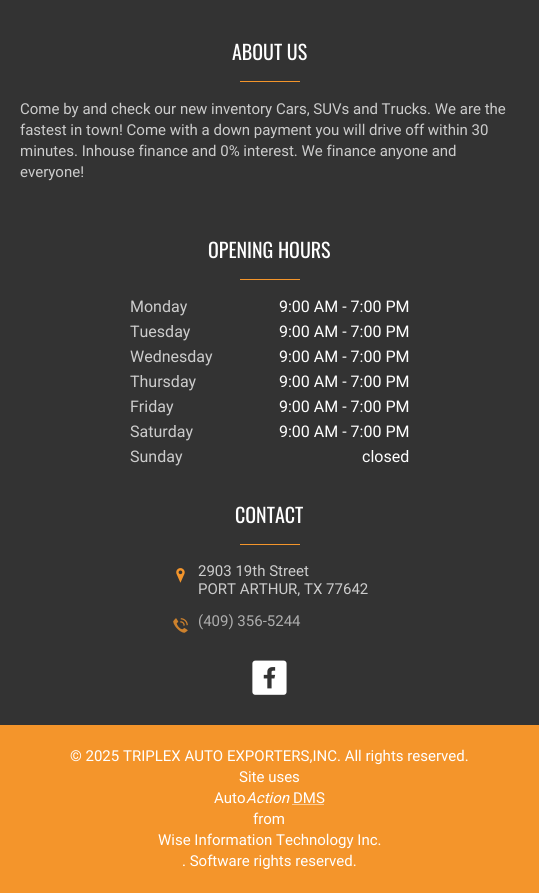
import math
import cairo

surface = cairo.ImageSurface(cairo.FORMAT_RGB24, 539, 893)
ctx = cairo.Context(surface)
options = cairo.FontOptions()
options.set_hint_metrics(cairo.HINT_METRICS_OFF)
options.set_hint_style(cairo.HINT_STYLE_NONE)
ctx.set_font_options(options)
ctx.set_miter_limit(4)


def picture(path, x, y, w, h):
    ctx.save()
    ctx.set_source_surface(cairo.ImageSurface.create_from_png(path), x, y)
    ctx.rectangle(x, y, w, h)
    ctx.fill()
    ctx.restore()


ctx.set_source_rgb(0.2, 0.2, 0.2)
ctx.paint()
ctx.select_font_face("Oswald")
ctx.set_font_size(20)
ctx.set_source_rgb(1, 1, 1)
ctx.move_to(232, 60)
ctx.show_text("ABOUT US")
ctx.set_source_rgb(0.957, 0.584, 0.169)
ctx.rectangle(240, 81, 60, 1)
ctx.fill()
ctx.select_font_face("Roboto")
ctx.set_font_size(15)
ctx.set_source_rgb(0.8, 0.8, 0.8)
ctx.move_to(20, 114)
ctx.show_text("Come by and check our new inventory Cars, SUVs and Trucks. We are the")
ctx.move_to(20, 135)
ctx.show_text("fastest in town! Come with a down payment you will drive off within 30")
ctx.move_to(20, 156)
ctx.show_text("minutes. Inhouse finance and 0% interest. We finance anyone and")
ctx.move_to(20, 177)
ctx.show_text("everyone!")
ctx.select_font_face("Oswald")
ctx.set_font_size(20)
ctx.set_source_rgb(1, 1, 1)
ctx.move_to(208, 258)
ctx.show_text("OPENING HOURS")
ctx.set_source_rgb(0.957, 0.584, 0.169)
ctx.rectangle(240, 279, 60, 1)
ctx.fill()
ctx.select_font_face("Roboto")
ctx.set_font_size(16)
ctx.set_source_rgb(0.8, 0.8, 0.8)
ctx.move_to(130, 312)
ctx.show_text("Monday")
ctx.set_source_rgb(1, 1, 1)
ctx.move_to(279, 312)
ctx.show_text("9:00 AM - 7:00 PM")
ctx.set_source_rgb(0.8, 0.8, 0.8)
ctx.move_to(130, 337)
ctx.show_text("Tuesday")
ctx.set_source_rgb(1, 1, 1)
ctx.move_to(279, 337)
ctx.show_text("9:00 AM - 7:00 PM")
ctx.set_source_rgb(0.8, 0.8, 0.8)
ctx.move_to(130, 362)
ctx.show_text("Wednesday")
ctx.set_source_rgb(1, 1, 1)
ctx.move_to(279, 362)
ctx.show_text("9:00 AM - 7:00 PM")
ctx.set_source_rgb(0.8, 0.8, 0.8)
ctx.move_to(130, 387)
ctx.show_text("Thursday")
ctx.set_source_rgb(1, 1, 1)
ctx.move_to(279, 387)
ctx.show_text("9:00 AM - 7:00 PM")
ctx.set_source_rgb(0.8, 0.8, 0.8)
ctx.move_to(130, 412)
ctx.show_text("Friday")
ctx.set_source_rgb(1, 1, 1)
ctx.move_to(279, 412)
ctx.show_text("9:00 AM - 7:00 PM")
ctx.set_source_rgb(0.8, 0.8, 0.8)
ctx.move_to(130, 437)
ctx.show_text("Saturday")
ctx.set_source_rgb(1, 1, 1)
ctx.move_to(279, 437)
ctx.show_text("9:00 AM - 7:00 PM")
ctx.set_source_rgb(0.8, 0.8, 0.8)
ctx.move_to(130, 462)
ctx.show_text("Sunday")
ctx.set_source_rgb(1, 1, 1)
ctx.move_to(362, 462)
ctx.show_text("closed")
ctx.select_font_face("Oswald")
ctx.set_font_size(20)
ctx.move_to(235, 523)
ctx.show_text("CONTACT")
ctx.set_source_rgb(0.957, 0.584, 0.169)
ctx.rectangle(240, 544, 60, 1)
ctx.fill()
picture("img1.png", 176, 568, 9, 15)
ctx.select_font_face("Roboto")
ctx.set_font_size(15)
ctx.set_source_rgb(0.8, 0.8, 0.8)
ctx.move_to(198, 576)
ctx.show_text("2903 19th Street")
ctx.move_to(198, 594)
ctx.show_text("PORT ARTHUR, TX 77642")
picture("img2.png", 173, 618, 15, 15)
ctx.set_source_rgb(0.678, 0.678, 0.678)
ctx.move_to(198, 626)
ctx.show_text("(409) 356-5244")
picture("img3.png", 252, 660, 35, 35)
ctx.set_source_rgb(0.957, 0.584, 0.169)
ctx.rectangle(0, 725, 539, 168)
ctx.fill()
ctx.set_source_rgb(1, 1, 1)
ctx.move_to(70, 761)
ctx.show_text("© 2025 TRIPLEX AUTO EXPORTERS,INC. All rights reserved.")
ctx.move_to(239, 782)
ctx.show_text("Site uses")
ctx.move_to(214, 803)
ctx.show_text("Auto")
ctx.select_font_face("Roboto", cairo.FONT_SLANT_ITALIC)
ctx.move_to(246, 803)
ctx.show_text("Action")
ctx.select_font_face("Roboto")
ctx.move_to(293, 803)
ctx.show_text("DMS")
ctx.new_path()
ctx.move_to(292.5, 804.5)
ctx.line_to(324.5, 804.5)
ctx.set_line_width(1)
ctx.set_dash([1, 1])
ctx.stroke()
ctx.move_to(253, 824)
ctx.show_text("from")
ctx.move_to(158, 845)
ctx.show_text("Wise Information Technology Inc.")
ctx.move_to(182, 866)
ctx.show_text(". Software rights reserved.")
surface.write_to_png("page.png")
